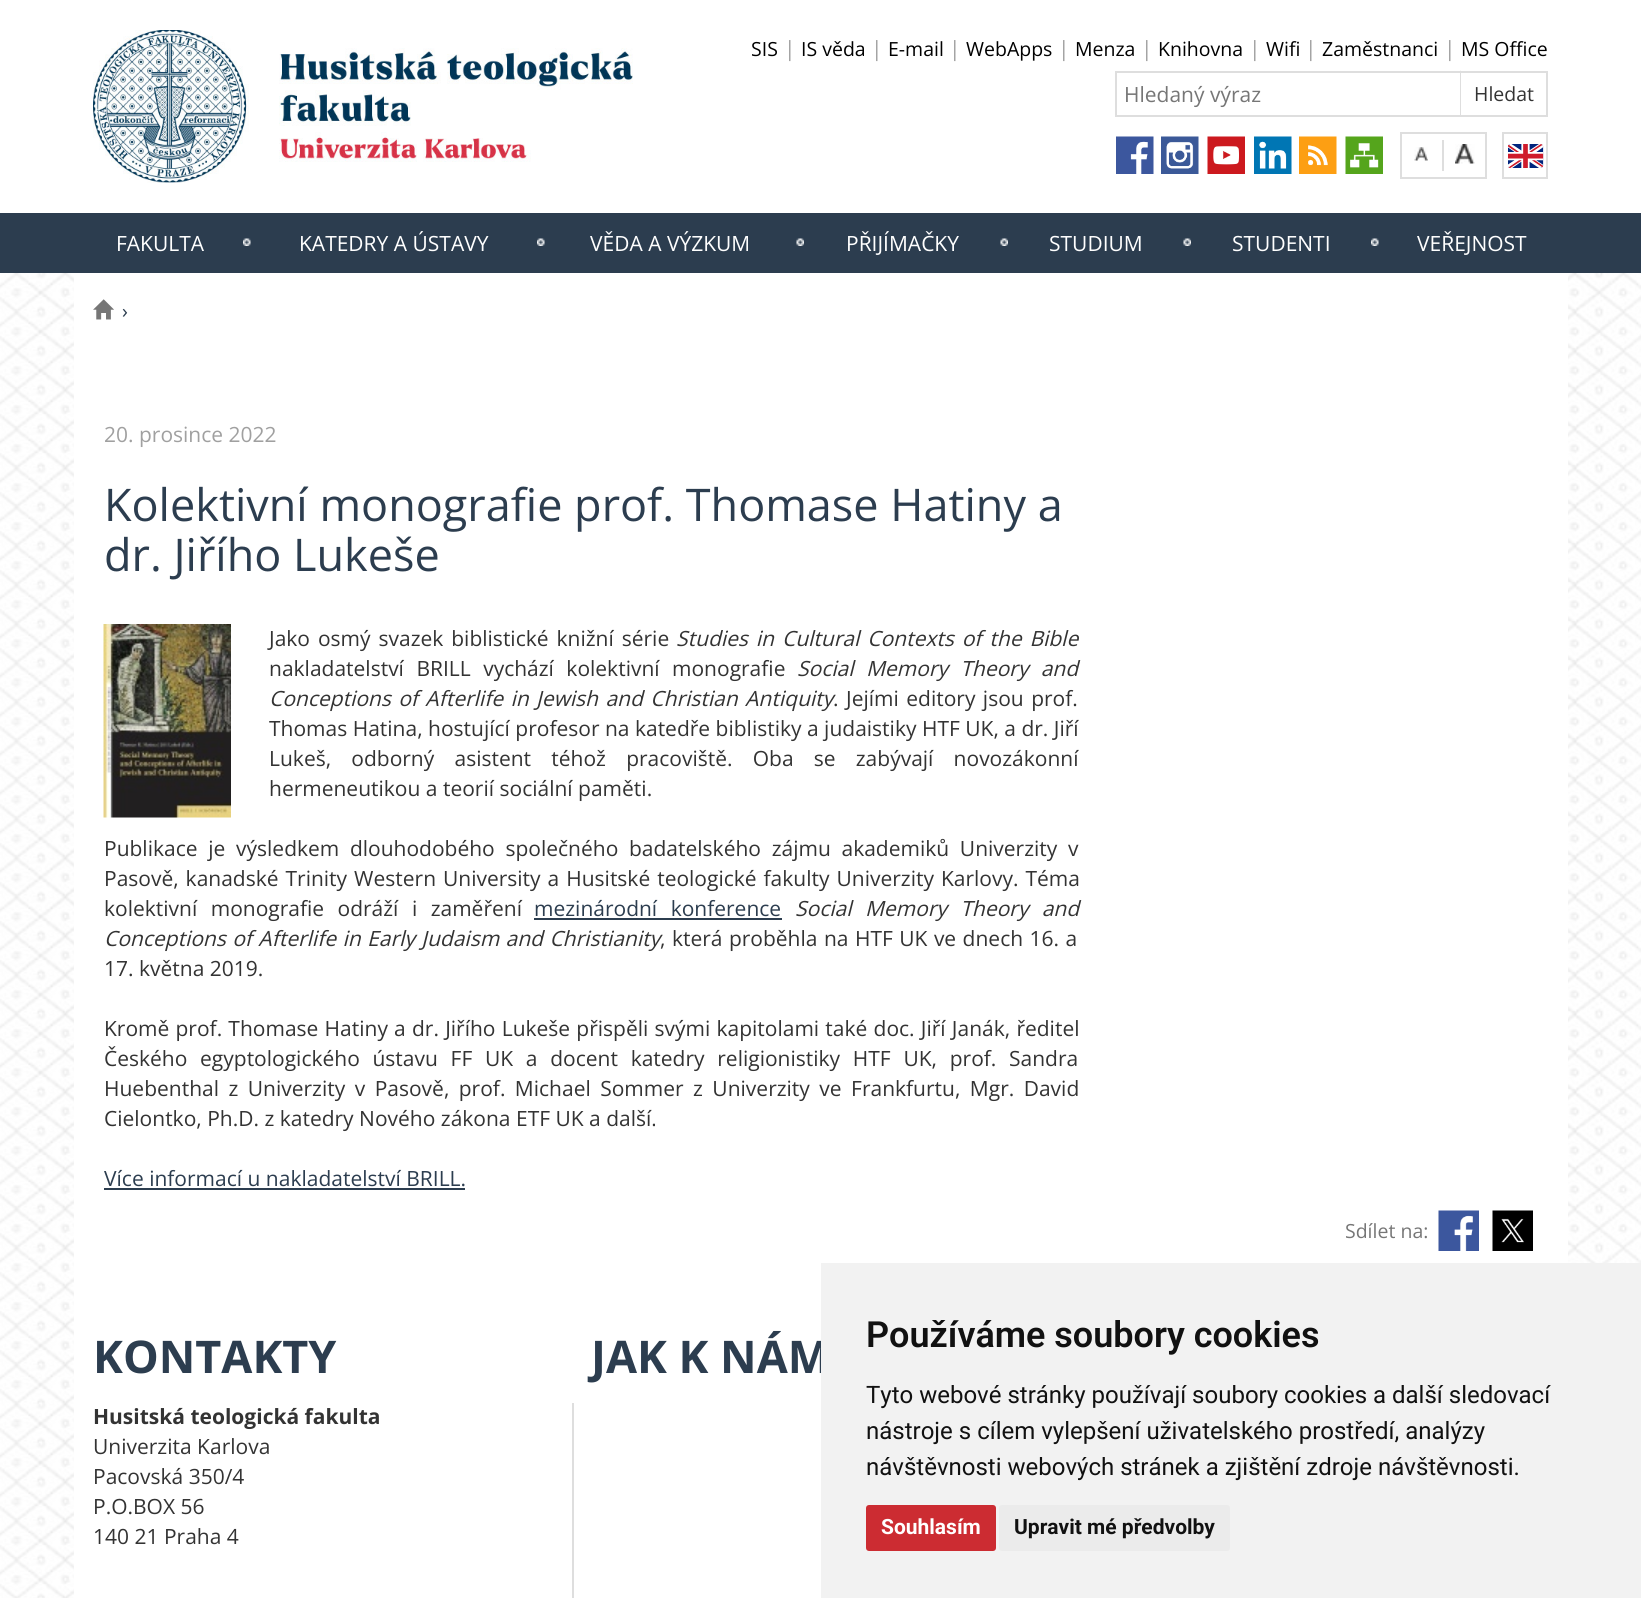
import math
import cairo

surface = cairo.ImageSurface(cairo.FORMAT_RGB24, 1641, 1598)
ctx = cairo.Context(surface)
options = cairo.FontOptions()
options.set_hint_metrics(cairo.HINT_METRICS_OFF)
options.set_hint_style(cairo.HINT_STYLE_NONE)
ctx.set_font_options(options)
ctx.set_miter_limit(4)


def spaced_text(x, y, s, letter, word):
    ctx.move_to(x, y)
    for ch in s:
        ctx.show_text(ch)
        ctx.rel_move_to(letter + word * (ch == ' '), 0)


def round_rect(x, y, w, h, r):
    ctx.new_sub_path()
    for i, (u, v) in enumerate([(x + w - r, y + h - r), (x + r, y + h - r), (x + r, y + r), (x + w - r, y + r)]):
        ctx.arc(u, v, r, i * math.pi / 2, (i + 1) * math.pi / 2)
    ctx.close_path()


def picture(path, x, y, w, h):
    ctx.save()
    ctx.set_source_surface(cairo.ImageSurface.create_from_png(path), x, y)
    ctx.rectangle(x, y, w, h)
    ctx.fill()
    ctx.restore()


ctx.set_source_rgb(1, 1, 1)
ctx.paint()
picture("img1.png", 0, 273, 1641, 1325)
picture("img2.png", 93, 30, 540, 153)
ctx.select_font_face("Open Sans")
ctx.set_font_size(19.5)
ctx.set_source_rgb(0, 0, 0)
ctx.move_to(751, 56)
ctx.show_text("SIS")
ctx.set_font_size(21)
ctx.set_source_rgb(0.627, 0.627, 0.627)
ctx.move_to(784, 56)
ctx.show_text("|")
ctx.set_font_size(19.5)
ctx.set_source_rgb(0, 0, 0)
ctx.move_to(801, 56)
ctx.show_text("IS věda")
ctx.set_font_size(21)
ctx.set_source_rgb(0.627, 0.627, 0.627)
ctx.move_to(871, 56)
ctx.show_text("|")
ctx.set_font_size(19.5)
ctx.set_source_rgb(0, 0, 0)
ctx.move_to(888, 56)
ctx.show_text("E-mail")
ctx.set_font_size(21)
ctx.set_source_rgb(0.627, 0.627, 0.627)
ctx.move_to(949, 56)
ctx.show_text("|")
ctx.set_font_size(19.5)
ctx.set_source_rgb(0, 0, 0)
ctx.move_to(966, 56)
ctx.show_text("WebApps")
ctx.set_font_size(21)
ctx.set_source_rgb(0.627, 0.627, 0.627)
ctx.move_to(1058, 56)
ctx.show_text("|")
ctx.set_font_size(19.5)
ctx.set_source_rgb(0, 0, 0)
ctx.move_to(1075, 56)
ctx.show_text("Menza")
ctx.set_font_size(21)
ctx.set_source_rgb(0.627, 0.627, 0.627)
ctx.move_to(1141, 56)
ctx.show_text("|")
ctx.set_font_size(19.5)
ctx.set_source_rgb(0, 0, 0)
ctx.move_to(1158, 56)
ctx.show_text("Knihovna")
ctx.set_font_size(21)
ctx.set_source_rgb(0.627, 0.627, 0.627)
ctx.move_to(1249, 56)
ctx.show_text("|")
ctx.set_font_size(19.5)
ctx.set_source_rgb(0, 0, 0)
ctx.move_to(1266, 56)
ctx.show_text("Wifi")
ctx.set_font_size(21)
ctx.set_source_rgb(0.627, 0.627, 0.627)
ctx.move_to(1305, 56)
ctx.show_text("|")
ctx.set_font_size(19.5)
ctx.set_source_rgb(0, 0, 0)
ctx.move_to(1322, 56)
ctx.show_text("Zaměstnanci")
ctx.set_font_size(21)
ctx.set_source_rgb(0.627, 0.627, 0.627)
ctx.move_to(1444, 56)
ctx.show_text("|")
ctx.set_font_size(19.5)
ctx.set_source_rgb(0, 0, 0)
ctx.move_to(1461, 56)
ctx.show_text("MS Office")
ctx.rectangle(1116, 72, 431, 44)
ctx.set_source_rgb(0.871, 0.871, 0.871)
ctx.stroke()
ctx.set_font_size(21)
ctx.set_source_rgb(0.463, 0.463, 0.463)
ctx.move_to(1124, 102)
ctx.show_text("Hledaný výraz")
ctx.set_source_rgb(0.871, 0.871, 0.871)
ctx.new_path()
ctx.move_to(1460, 117)
ctx.line_to(1460, 70)
ctx.line_to(1461, 72)
ctx.line_to(1461, 116)
ctx.close_path()
ctx.fill()
ctx.set_font_size(19.5)
ctx.set_source_rgb(0.2, 0.2, 0.2)
ctx.move_to(1474, 101)
ctx.show_text("Hledat")
picture("img3.png", 1116, 136, 38, 38)
picture("img4.png", 1161, 136, 38, 38)
picture("img5.png", 1207, 136, 38, 38)
picture("img6.png", 1254, 136, 38, 38)
picture("img7.png", 1299, 136, 38, 38)
picture("img8.png", 1345, 136, 38, 38)
ctx.rectangle(1401, 133, 85, 45)
ctx.set_source_rgb(0.871, 0.871, 0.871)
ctx.stroke()
picture("img9.png", 1414, 147, 14, 14)
ctx.rectangle(1442, 140, 2, 31)
ctx.fill()
picture("img10.png", 1455, 144, 20, 20)
picture("img11.png", 1508, 144, 36, 24)
ctx.rectangle(1503, 133, 44, 45)
ctx.stroke()
ctx.set_source_rgb(0.173, 0.239, 0.31)
ctx.rectangle(0, 213, 1641, 60)
ctx.fill()
ctx.set_font_size(21)
ctx.set_source_rgb(1, 1, 1)
ctx.move_to(116, 251)
ctx.show_text("FAKULTA")
picture("img12.png", 243, 238, 8, 8)
ctx.move_to(299, 251)
ctx.show_text("KATEDRY A ÚSTAVY")
picture("img12.png", 537, 238, 8, 8)
ctx.move_to(590, 251)
ctx.show_text("VĚDA A VÝZKUM")
picture("img13.png", 796, 238, 8, 8)
ctx.move_to(846, 251)
ctx.show_text("PŘIJÍMAČKY")
picture("img13.png", 1000, 238, 8, 8)
ctx.move_to(1049, 251)
ctx.show_text("STUDIUM")
picture("img14.png", 1183, 238, 8, 8)
ctx.move_to(1232, 251)
ctx.show_text("STUDENTI")
picture("img12.png", 1371, 238, 8, 8)
ctx.move_to(1417, 251)
ctx.show_text("VEŘEJNOST")
ctx.rectangle(74, 273, 1494, 1325)
ctx.fill()
picture("img15.png", 93, 299, 21, 21)
ctx.set_font_size(19.5)
ctx.set_source_rgb(0.173, 0.239, 0.31)
ctx.move_to(122, 318)
ctx.show_text("›")
ctx.set_font_size(21)
ctx.set_source_rgb(0.627, 0.627, 0.627)
ctx.move_to(104, 442)
ctx.show_text("20. prosince 2022")
ctx.set_font_size(45)
ctx.set_source_rgb(0.173, 0.239, 0.31)
ctx.move_to(104, 521)
ctx.show_text("Kolektivní monografie prof. Thomase Hatiny a")
ctx.move_to(104, 571)
ctx.show_text("dr. Jiřího Lukeše")
picture("img16.png", 103, 624, 128, 194)
ctx.set_font_size(21)
ctx.set_source_rgb(0.2, 0.2, 0.2)
spaced_text(269, 646, "Jako osmý svazek biblistické knižní série", 0, 2.5)
ctx.select_font_face("Open Sans", cairo.FONT_SLANT_ITALIC)
spaced_text(676, 646, "Studies in Cultural Contexts of the Bible", 0, 2.5)
ctx.select_font_face("Open Sans")
spaced_text(269, 676, "nakladatelství BRILL vychází kolektivní monografie", 0, 7)
ctx.select_font_face("Open Sans", cairo.FONT_SLANT_ITALIC)
spaced_text(797, 676, "Social Memory Theory and", 0, 7)
spaced_text(269, 706, "Conceptions of Afterlife in Jewish and Christian Antiquity", 0, 2)
ctx.select_font_face("Open Sans")
spaced_text(846, 706, "Jejími editory jsou prof.", 0, 2)
ctx.move_to(833, 706)
ctx.show_text(".")
ctx.move_to(269, 736)
ctx.show_text("Thomas Hatina, hostující profesor na katedře biblistiky a judaistiky HTF UK, a dr. Jiří")
spaced_text(269, 766, "Lukeš, odborný asistent téhož pracoviště. Oba se zabývají novozákonní", 0, 14.75)
ctx.move_to(269, 796)
ctx.show_text("hermeneutikou a teorií sociální paměti.")
spaced_text(104, 856, "Publikace je výsledkem dlouhodobého společného badatelského zájmu akademiků Univerzity v", 0, 5.25)
spaced_text(104, 886, "Pasově, kanadské Trinity Western University a Husitské teologické fakulty Univerzity Karlovy. Téma", 0, 1.5)
spaced_text(104, 916, "kolektivní monografie odráží i zaměření", 0, 8)
ctx.set_source_rgb(0.173, 0.239, 0.31)
spaced_text(534, 916, "mezinárodní konference", 0, 8)
ctx.rectangle(534, 918, 248, 2)
ctx.fill()
ctx.select_font_face("Open Sans", cairo.FONT_SLANT_ITALIC)
ctx.set_source_rgb(0.2, 0.2, 0.2)
spaced_text(795, 916, "Social Memory Theory and", 0, 8)
spaced_text(104, 946, "Conceptions of Afterlife in Early Judaism and Christianity", 0, 1)
ctx.select_font_face("Open Sans")
spaced_text(660, 946, ", která proběhla na HTF UK ve dnech 16. a", 0, 1)
ctx.move_to(104, 976)
ctx.show_text("17. května 2019.")
spaced_text(104, 1036, "Kromě prof. Thomase Hatiny a dr. Jiřího Lukeše přispěli svými kapitolami také doc. Jiří Janák, ředitel", 0, 0.75)
spaced_text(104, 1066, "Českého egyptologického ústavu FF UK a docent katedry religionistiky HTF UK, prof. Sandra", 0, 7.25)
spaced_text(104, 1096, "Huebenthal z Univerzity v Pasově, prof. Michael Sommer z Univerzity ve Frankfurtu, Mgr. David", 0, 4)
ctx.move_to(104, 1126)
ctx.show_text("Cielontko, Ph.D. z katedry Nového zákona ETF UK a další.")
ctx.set_source_rgb(0.173, 0.239, 0.31)
ctx.move_to(104, 1186)
ctx.show_text("Více informací u nakladatelství BRILL.")
ctx.rectangle(104, 1188, 361, 2)
ctx.fill()
ctx.set_font_size(19.5)
ctx.set_source_rgb(0.463, 0.463, 0.463)
ctx.move_to(1345, 1238)
ctx.show_text("Sdílet na:")
picture("img17.png", 1438, 1210, 41, 41)
picture("img18.png", 1492, 1210, 41, 41)
ctx.select_font_face("Open Sans", cairo.FONT_SLANT_NORMAL, cairo.FONT_WEIGHT_BOLD)
ctx.set_font_size(45)
ctx.set_source_rgb(0.173, 0.239, 0.31)
ctx.move_to(93, 1373)
ctx.show_text("KONTAKTY")
ctx.set_font_size(21)
ctx.set_source_rgb(0.2, 0.2, 0.2)
ctx.move_to(93, 1424)
ctx.show_text("Husitská teologická fakulta")
ctx.select_font_face("Open Sans")
ctx.move_to(93, 1454)
ctx.show_text("Univerzita Karlova")
ctx.move_to(93, 1484)
ctx.show_text("Pacovská 350/4")
ctx.move_to(93, 1514)
ctx.show_text("P.O.BOX 56")
ctx.move_to(93, 1544)
ctx.show_text("140 21 Praha 4")
ctx.select_font_face("Open Sans", cairo.FONT_SLANT_NORMAL, cairo.FONT_WEIGHT_BOLD)
ctx.set_font_size(45)
ctx.set_source_rgb(0.173, 0.239, 0.31)
ctx.move_to(591, 1373)
ctx.show_text("JAK K NÁM")
ctx.set_source_rgb(0.871, 0.871, 0.871)
ctx.rectangle(572, 1403, 2, 195)
ctx.fill()
ctx.set_source_rgb(0.949, 0.949, 0.949)
ctx.rectangle(821, 1263, 820, 335)
ctx.fill()
ctx.select_font_face("Roboto SemiBold")
ctx.set_font_size(36)
ctx.set_source_rgb(0.067, 0.067, 0.067)
ctx.move_to(866, 1347)
ctx.show_text("Používáme soubory cookies")
ctx.select_font_face("Roboto")
ctx.set_font_size(24)
ctx.move_to(866, 1403)
ctx.show_text("Tyto webové stránky používají soubory cookies a další sledovací")
ctx.move_to(866, 1439)
ctx.show_text("nástroje s cílem vylepšení uživatelského prostředí, analýzy")
ctx.move_to(866, 1475)
ctx.show_text("návštěvnosti webových stránek a zjištění zdroje návštěvnosti.")
ctx.set_source_rgb(0.8, 0.173, 0.196)
round_rect(866, 1505, 130, 46, 3)
ctx.fill()
ctx.select_font_face("Roboto", cairo.FONT_SLANT_NORMAL, cairo.FONT_WEIGHT_BOLD)
ctx.set_font_size(21)
ctx.set_source_rgb(1, 1, 1)
ctx.move_to(881, 1534)
ctx.show_text("Souhlasím")
ctx.set_source_rgb(0.918, 0.918, 0.918)
round_rect(999, 1505, 231, 46, 3)
ctx.fill()
ctx.set_source_rgb(0.067, 0.067, 0.067)
ctx.move_to(1014, 1534)
ctx.show_text("Upravit mé předvolby")
surface.write_to_png("page.png")
